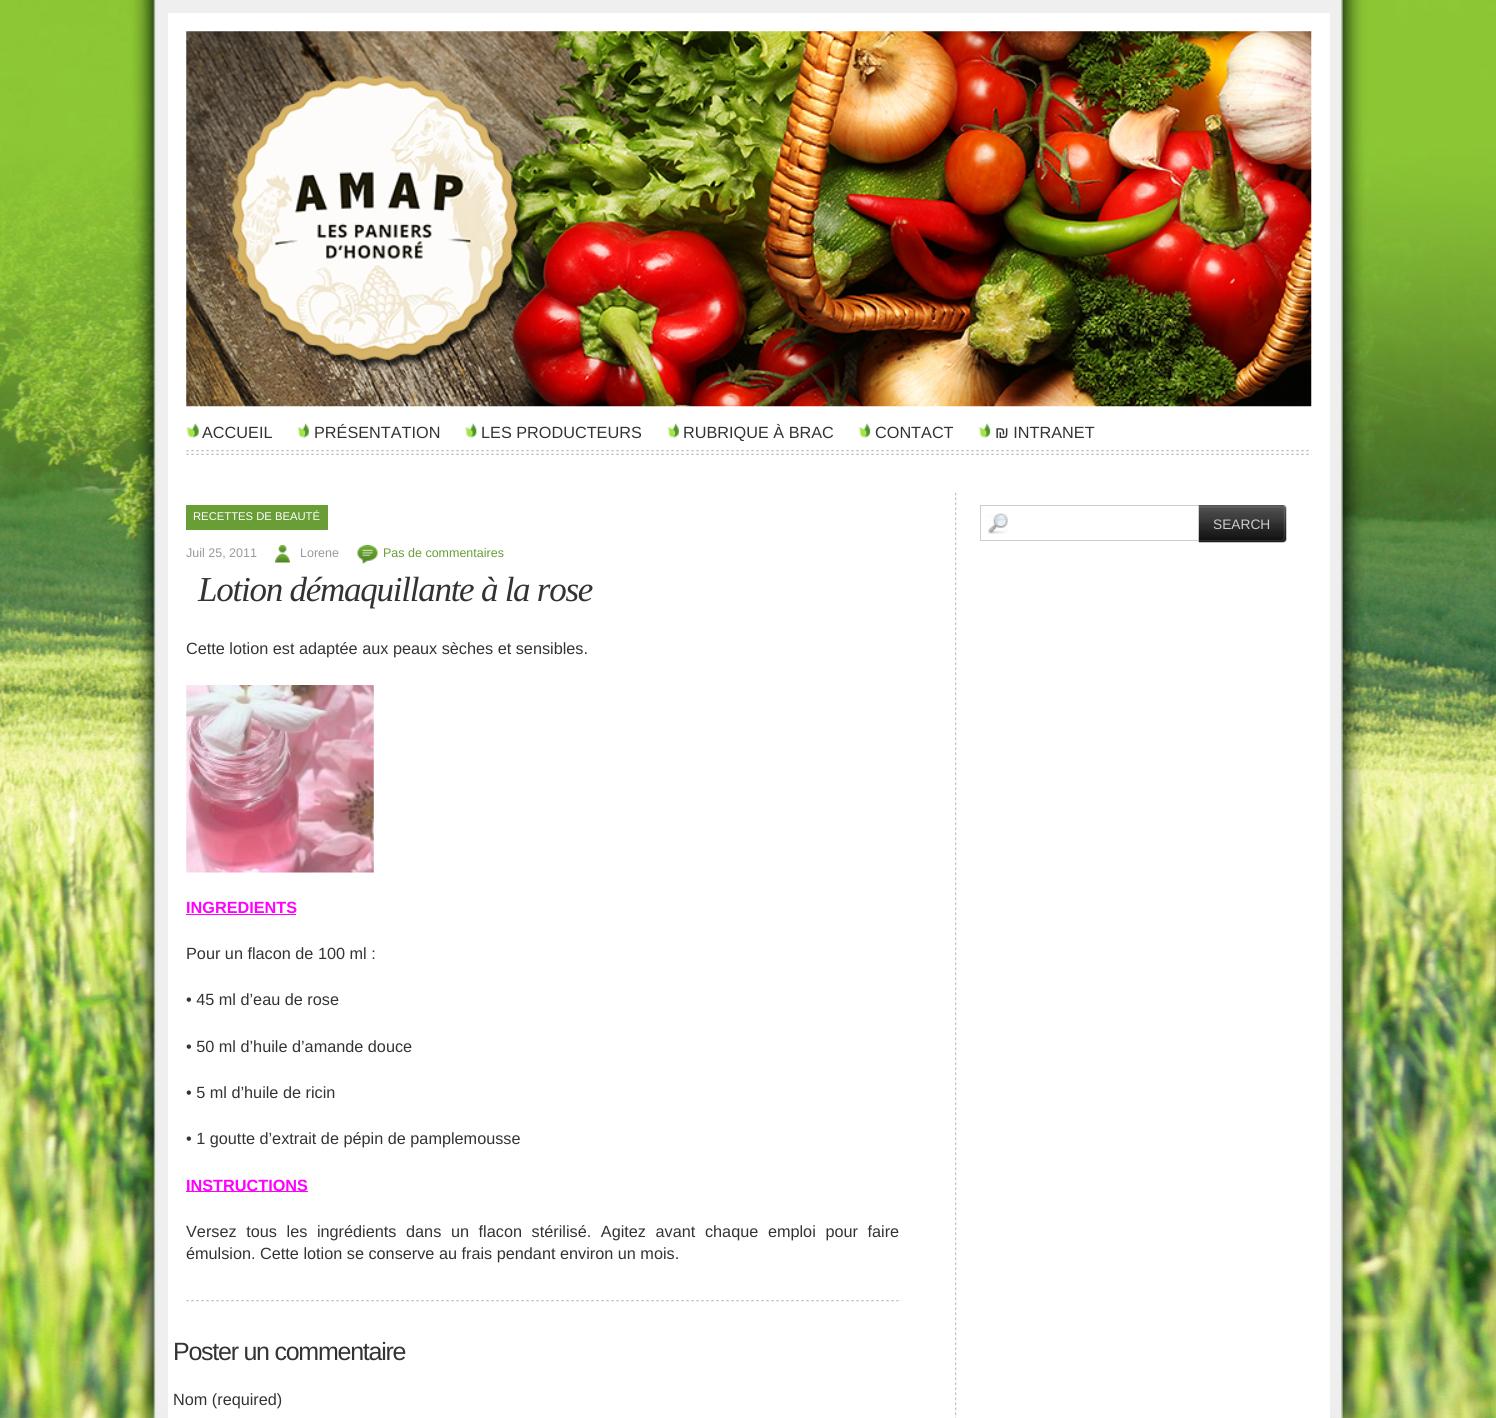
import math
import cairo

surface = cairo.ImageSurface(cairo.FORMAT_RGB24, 1496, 1418)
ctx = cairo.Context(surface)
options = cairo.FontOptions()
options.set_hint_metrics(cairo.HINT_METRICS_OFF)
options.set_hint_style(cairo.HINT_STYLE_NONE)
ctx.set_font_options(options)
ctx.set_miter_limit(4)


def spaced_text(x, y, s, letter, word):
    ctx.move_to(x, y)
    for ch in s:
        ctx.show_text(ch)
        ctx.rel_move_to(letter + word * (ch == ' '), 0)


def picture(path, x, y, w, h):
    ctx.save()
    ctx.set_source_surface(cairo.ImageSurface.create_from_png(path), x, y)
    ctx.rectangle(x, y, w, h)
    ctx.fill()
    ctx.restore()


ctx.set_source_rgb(1, 1, 1)
ctx.paint()
picture("img1.png", 0, 0, 1496, 1418)
ctx.set_source_rgba(0.796, 0.796, 0.796, 0.31)
ctx.rectangle(155, 0, 1188, 1418)
ctx.fill()
ctx.set_source_rgb(1, 1, 1)
ctx.rectangle(168, 13, 1162, 1405)
ctx.fill()
picture("img2.png", 186, 31, 1126, 376)
picture("img3.png", 186, 450, 1126, 5)
picture("img4.png", 186, 423, 13, 15)
ctx.select_font_face("Liberation Sans")
ctx.set_font_size(16.25)
ctx.set_source_rgb(0.2, 0.2, 0.2)
ctx.move_to(202, 438)
ctx.show_text("ACCUEIL")
picture("img5.png", 297, 423, 12, 15)
ctx.move_to(314, 438)
ctx.show_text("PRÉSENTATION")
picture("img6.png", 465, 423, 12, 15)
ctx.move_to(481, 438)
ctx.show_text("LES PRODUCTEURS")
picture("img5.png", 667, 423, 12, 15)
ctx.move_to(683, 438)
ctx.show_text("RUBRIQUE À BRAC")
picture("img7.png", 858, 423, 13, 15)
ctx.move_to(875, 438)
ctx.show_text("CONTACT")
picture("img7.png", 978, 423, 13, 15)
ctx.move_to(995, 438)
ctx.show_text("₪ INTRANET")
picture("img8.png", 955, 492, 2, 926)
picture("img9.png", 186, 1300, 713, 2)
ctx.set_source_rgb(0.412, 0.616, 0.212)
ctx.rectangle(186, 505, 142, 25)
ctx.fill()
ctx.set_font_size(11.25)
ctx.set_source_rgb(1, 1, 1)
ctx.move_to(193, 520)
ctx.show_text("RECETTES DE BEAUTÉ")
ctx.set_font_size(12.5)
ctx.set_source_rgb(0.6, 0.6, 0.6)
ctx.move_to(186, 557)
ctx.show_text("Juil 25, 2011")
picture("img10.png", 275, 545, 15, 18)
ctx.move_to(300, 557)
ctx.show_text("Lorene")
picture("img11.png", 357, 545, 21, 19)
ctx.set_source_rgb(0.412, 0.616, 0.212)
ctx.move_to(383, 557)
ctx.show_text("Pas de commentaires")
ctx.select_font_face("Liberation Serif", cairo.FONT_SLANT_ITALIC)
ctx.set_font_size(35)
ctx.set_source_rgb(0.2, 0.2, 0.2)
spaced_text(198, 601, "Lotion démaquillante à la rose", -1.25, 0)
ctx.select_font_face("Liberation Sans")
ctx.set_font_size(16.25)
ctx.move_to(186, 654)
ctx.show_text("Cette lotion est adaptée aux peaux sèches et sensibles.")
picture("img12.png", 186, 685, 188, 188)
ctx.select_font_face("Liberation Sans", cairo.FONT_SLANT_NORMAL, cairo.FONT_WEIGHT_BOLD)
ctx.set_source_rgb(1, 0, 1)
ctx.move_to(186, 913)
ctx.show_text("INGREDIENTS")
ctx.rectangle(186, 914, 110, 1)
ctx.fill()
ctx.select_font_face("Liberation Sans")
ctx.set_source_rgb(0.2, 0.2, 0.2)
ctx.move_to(186, 959)
ctx.show_text("Pour un flacon de 100 ml :")
ctx.move_to(186, 1005)
ctx.show_text("• 45 ml d’eau de rose")
ctx.move_to(186, 1052)
ctx.show_text("• 50 ml d’huile d’amande douce")
ctx.move_to(186, 1098)
ctx.show_text("• 5 ml d’huile de ricin")
ctx.move_to(186, 1144)
ctx.show_text("• 1 goutte d’extrait de pépin de pamplemousse")
ctx.set_source_rgb(1, 0, 1)
ctx.rectangle(186, 1191, 122, 1)
ctx.fill()
ctx.select_font_face("Liberation Sans", cairo.FONT_SLANT_NORMAL, cairo.FONT_WEIGHT_BOLD)
ctx.move_to(186, 1191)
ctx.show_text("INSTRUCTIONS")
ctx.select_font_face("Liberation Sans")
ctx.set_source_rgb(0.2, 0.2, 0.2)
spaced_text(186, 1237, "Versez tous les ingrédients dans un flacon stérilisé. Agitez avant chaque emploi pour faire", 0, 5.1)
ctx.move_to(186, 1259)
ctx.show_text("émulsion. Cette lotion se conserve au frais pendant environ un mois.")
ctx.set_font_size(25)
spaced_text(173, 1360, "Poster un commentaire", -1.25, 0)
ctx.set_font_size(16.25)
ctx.move_to(173, 1405)
ctx.show_text("Nom (required)")
picture("img13.png", 987, 513, 21, 21)
ctx.set_source_rgb(0.804, 0.804, 0.804)
ctx.rectangle(980, 505, 219, 1)
ctx.fill()
ctx.rectangle(980, 540, 219, 1)
ctx.fill()
ctx.rectangle(980, 505, 1, 36)
ctx.fill()
picture("img14.png", 1198, 505, 89, 38)
ctx.set_font_size(13.75)
ctx.set_source_rgb(0.8, 0.8, 0.8)
ctx.move_to(1213, 529)
ctx.show_text("SEARCH")
surface.write_to_png("page.png")
